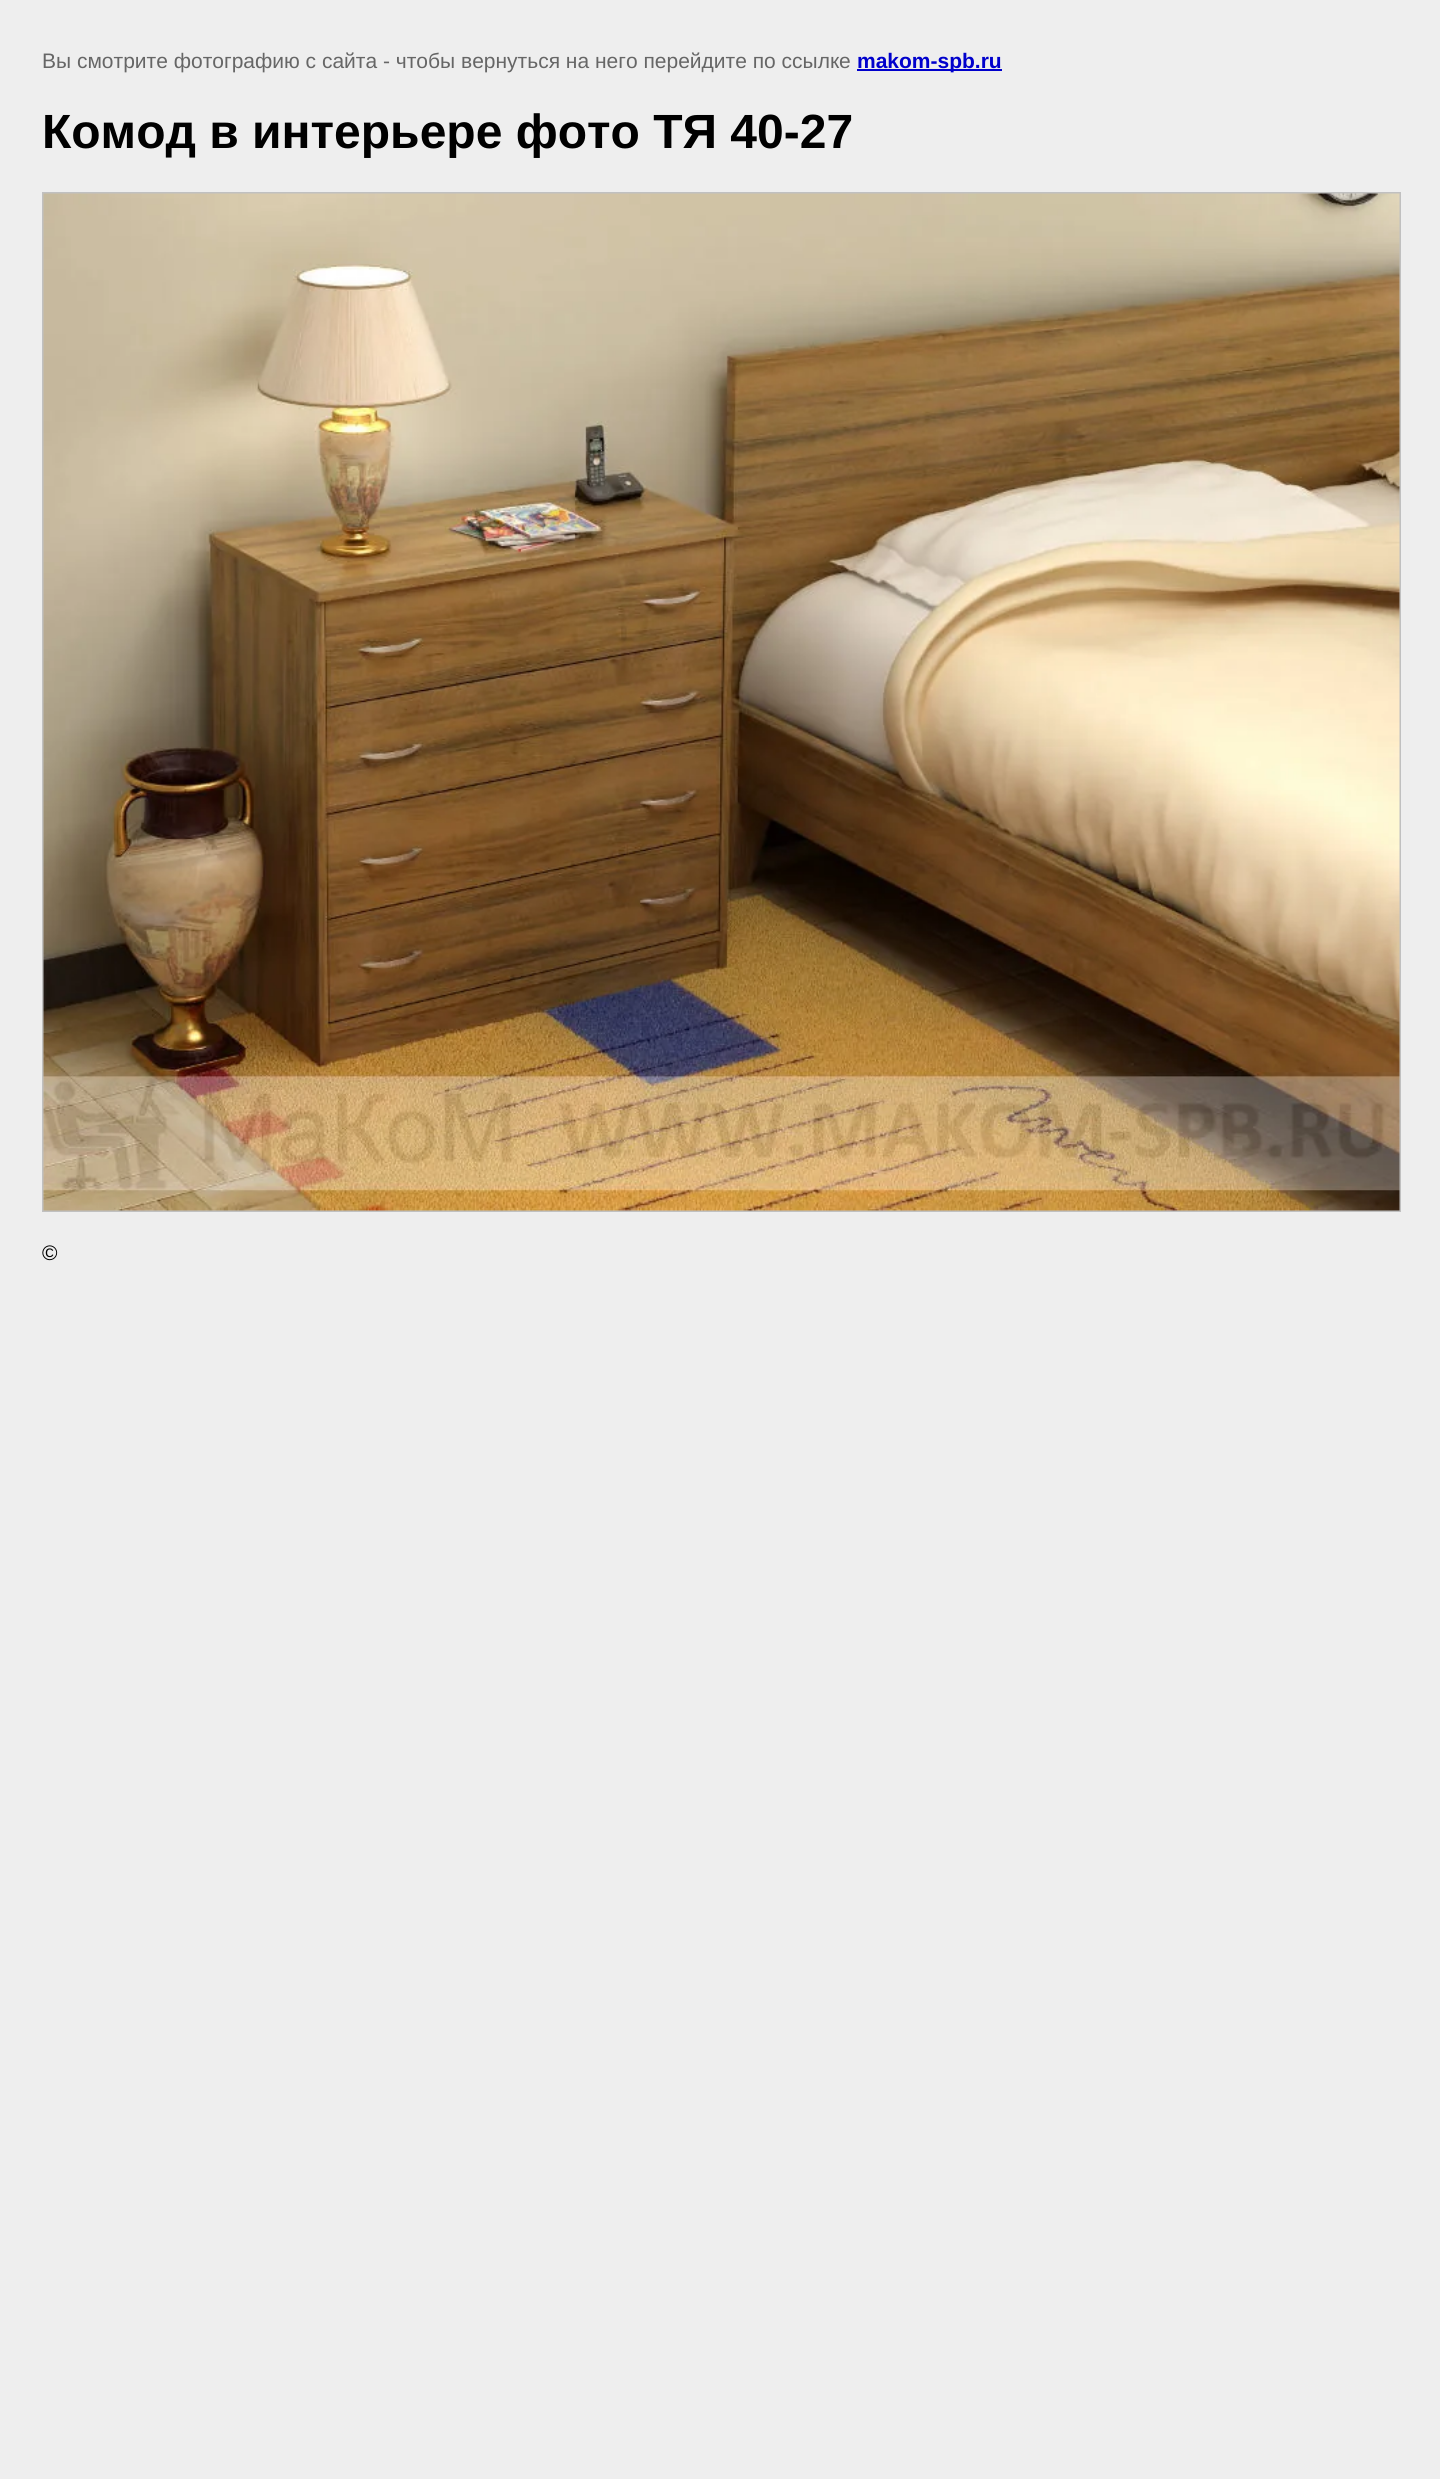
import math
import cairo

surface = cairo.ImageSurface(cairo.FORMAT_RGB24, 1440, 2479)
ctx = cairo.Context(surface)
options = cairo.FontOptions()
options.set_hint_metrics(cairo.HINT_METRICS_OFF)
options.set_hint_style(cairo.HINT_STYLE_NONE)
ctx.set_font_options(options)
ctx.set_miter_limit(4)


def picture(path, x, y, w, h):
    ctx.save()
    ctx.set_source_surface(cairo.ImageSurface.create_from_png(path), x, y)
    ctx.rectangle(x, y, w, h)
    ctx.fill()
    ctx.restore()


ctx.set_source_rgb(0.933, 0.933, 0.933)
ctx.paint()
ctx.select_font_face("Liberation Sans")
ctx.set_font_size(21)
ctx.set_source_rgb(0.4, 0.4, 0.4)
ctx.move_to(42, 68)
ctx.show_text("Вы смотрите фотографию с сайта - чтобы вернуться на него перейдите по ссылке")
ctx.set_source_rgb(0, 0, 0.8)
ctx.rectangle(857, 69, 145, 2)
ctx.fill()
ctx.select_font_face("Liberation Sans", cairo.FONT_SLANT_NORMAL, cairo.FONT_WEIGHT_BOLD)
ctx.move_to(857, 68)
ctx.show_text("makom-spb.ru")
ctx.set_font_size(48)
ctx.set_source_rgb(0, 0, 0)
ctx.move_to(42, 148)
ctx.show_text("Комод в интерьере фото ТЯ 40-27")
ctx.rectangle(43, 193, 1357, 1018)
ctx.set_source_rgb(0.753, 0.753, 0.753)
ctx.stroke()
picture("img1.png", 43, 193, 1357, 1018)
ctx.select_font_face("Liberation Sans")
ctx.set_font_size(21)
ctx.set_source_rgb(0, 0, 0)
ctx.move_to(42, 1260)
ctx.show_text("©")
surface.write_to_png("page.png")
